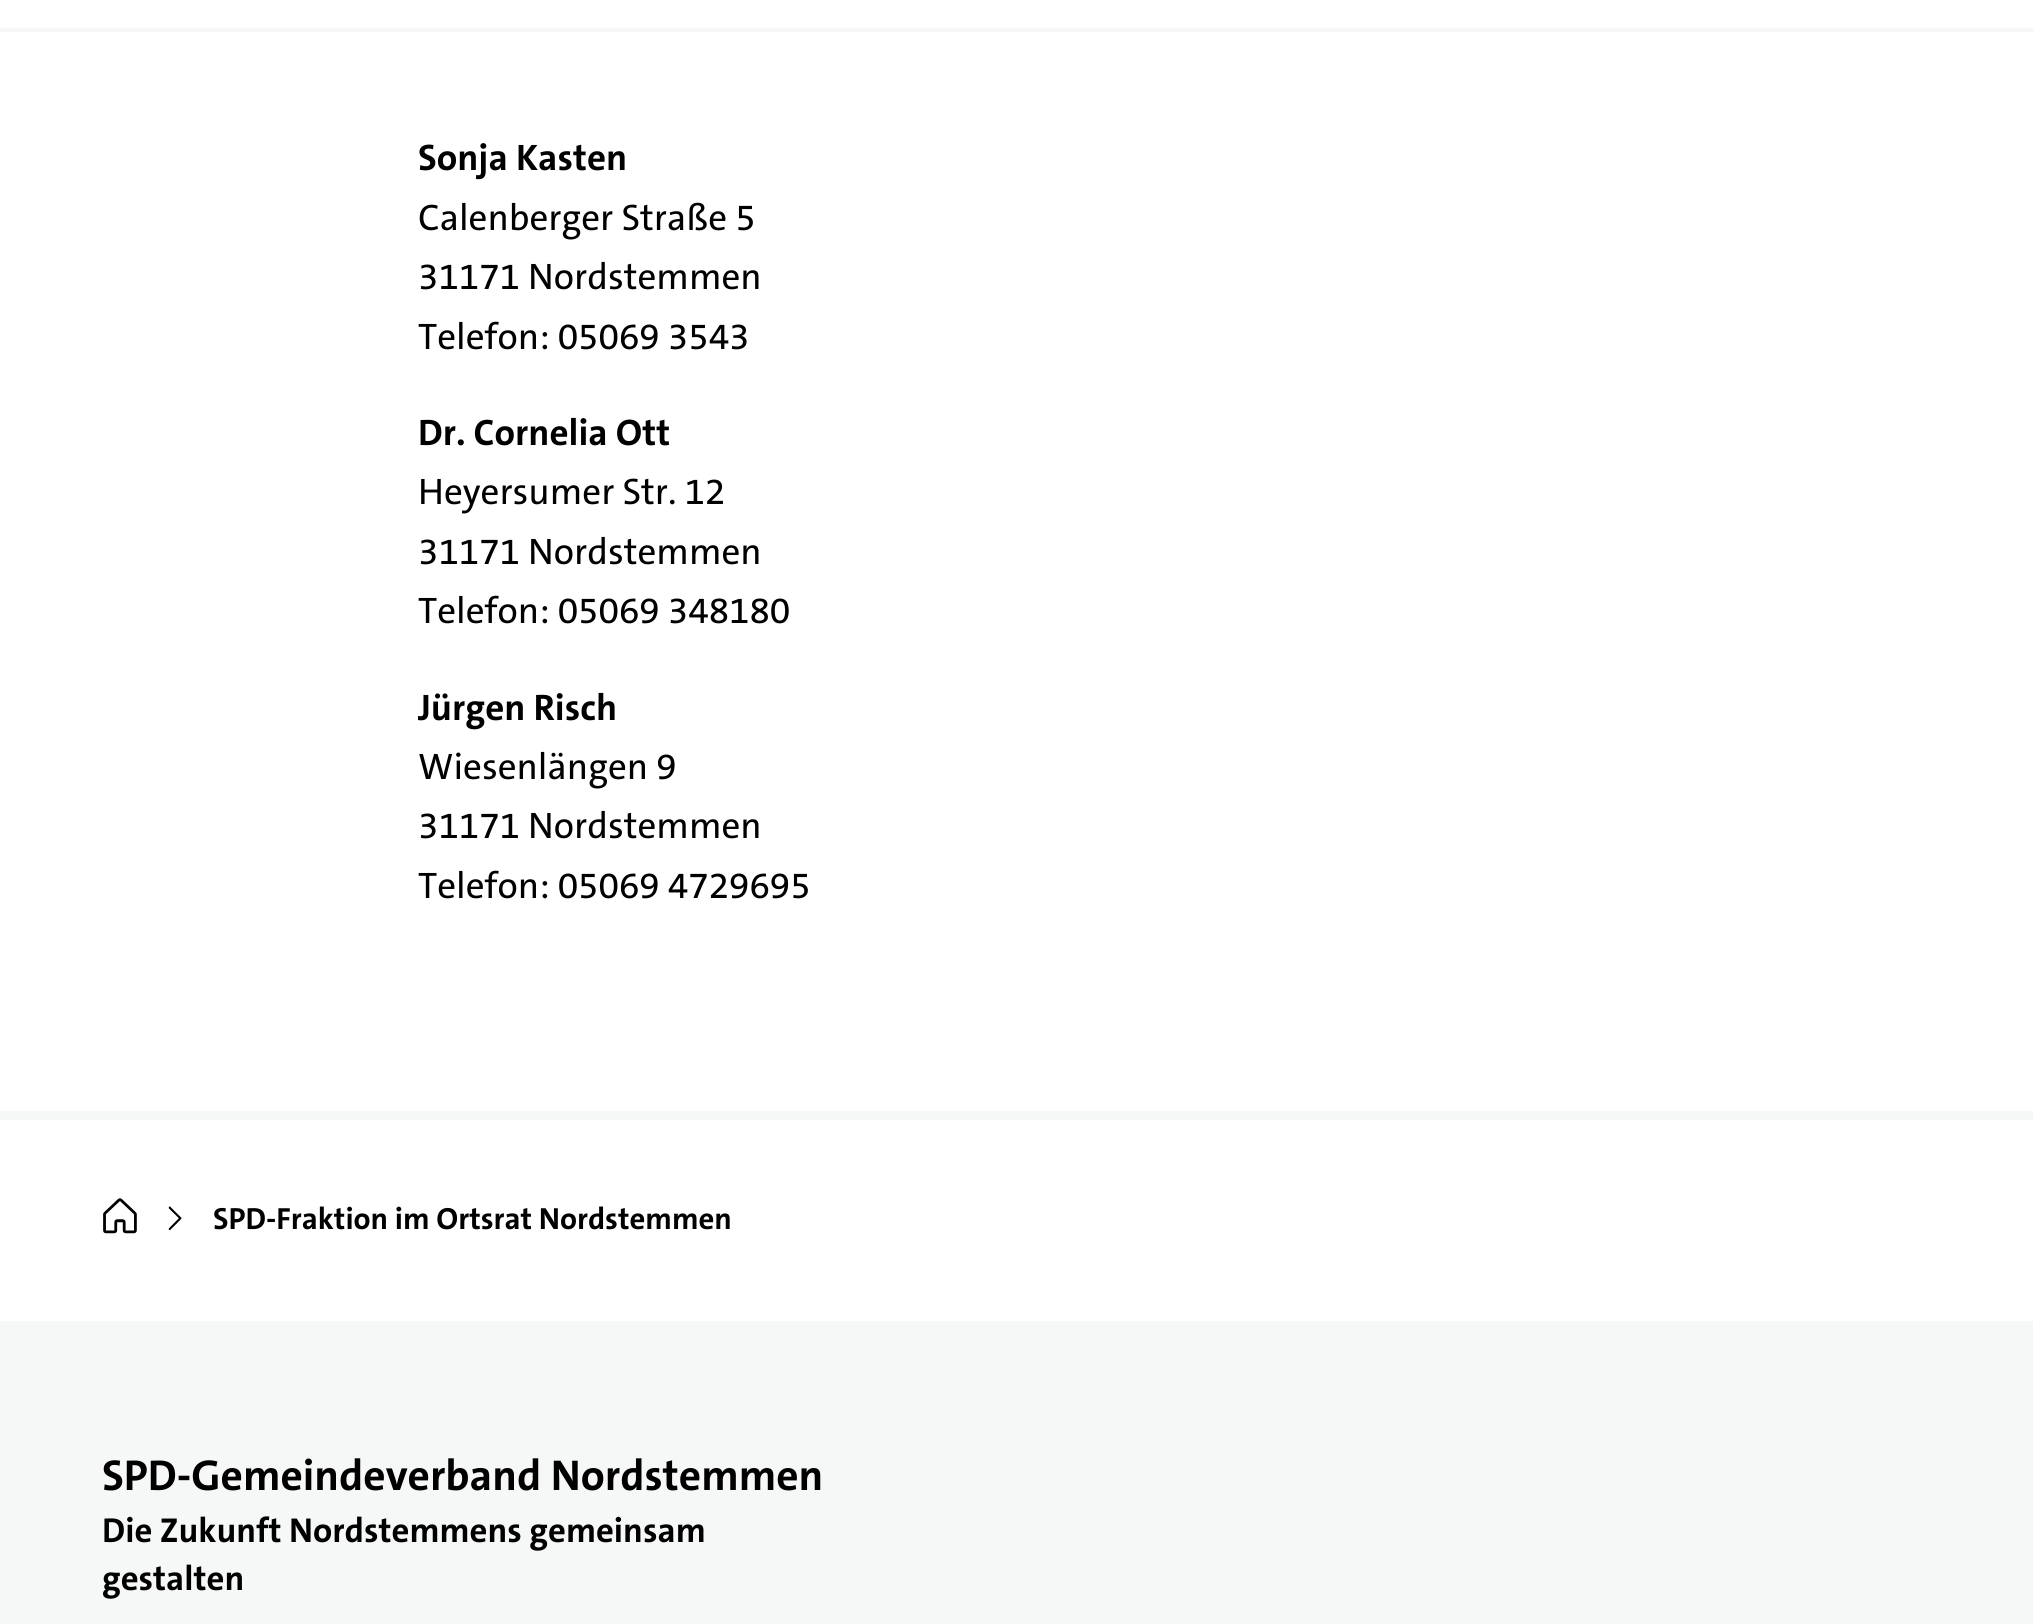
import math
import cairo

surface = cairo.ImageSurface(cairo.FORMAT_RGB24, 2033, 1624)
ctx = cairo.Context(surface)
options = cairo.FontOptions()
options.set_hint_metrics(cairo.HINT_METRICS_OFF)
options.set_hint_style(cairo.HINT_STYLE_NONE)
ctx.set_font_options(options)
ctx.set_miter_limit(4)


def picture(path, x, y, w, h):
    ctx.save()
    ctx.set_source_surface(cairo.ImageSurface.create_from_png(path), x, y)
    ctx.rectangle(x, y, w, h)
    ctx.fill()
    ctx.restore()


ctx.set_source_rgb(1, 1, 1)
ctx.paint()
ctx.set_source_rgb(0.961, 0.965, 0.965)
ctx.rectangle(0, 28, 2033, 4)
ctx.fill()
ctx.select_font_face("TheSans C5", cairo.FONT_SLANT_NORMAL, cairo.FONT_WEIGHT_BOLD)
ctx.set_font_size(37.1)
ctx.set_source_rgb(0, 0, 0)
ctx.move_to(418, 170)
ctx.show_text("Sonja Kasten")
ctx.select_font_face("TheSans C5 Medium")
ctx.move_to(418, 230)
ctx.show_text("Calenberger Straße 5")
ctx.move_to(418, 289)
ctx.show_text("31171 Nordstemmen")
ctx.move_to(418, 349)
ctx.show_text("Telefon: 05069 3543")
ctx.select_font_face("TheSans C5", cairo.FONT_SLANT_NORMAL, cairo.FONT_WEIGHT_BOLD)
ctx.move_to(418, 445)
ctx.show_text("Dr. Cornelia Ott")
ctx.select_font_face("TheSans C5 Medium")
ctx.move_to(418, 504)
ctx.show_text("Heyersumer Str. 12")
ctx.move_to(418, 564)
ctx.show_text("31171 Nordstemmen")
ctx.move_to(418, 623)
ctx.show_text("Telefon: 05069 348180")
ctx.select_font_face("TheSans C5", cairo.FONT_SLANT_NORMAL, cairo.FONT_WEIGHT_BOLD)
ctx.move_to(418, 720)
ctx.show_text("Jürgen Risch")
ctx.select_font_face("TheSans C5 Medium")
ctx.move_to(418, 779)
ctx.show_text("Wiesenlängen 9")
ctx.move_to(418, 838)
ctx.show_text("31171 Nordstemmen")
ctx.move_to(418, 898)
ctx.show_text("Telefon: 05069 4729695")
ctx.set_source_rgb(0.961, 0.965, 0.965)
ctx.rectangle(0, 1111, 2033, 9)
ctx.fill()
picture("img1.png", 103, 1198, 34, 36)
picture("img2.png", 168, 1206, 14, 24)
ctx.select_font_face("TheSans C5", cairo.FONT_SLANT_NORMAL, cairo.FONT_WEIGHT_BOLD)
ctx.set_font_size(30.75)
ctx.set_source_rgb(0, 0, 0)
ctx.move_to(213, 1229)
ctx.show_text("SPD-Fraktion im Ortsrat Nordstemmen")
ctx.set_source_rgb(0.961, 0.965, 0.965)
ctx.rectangle(0, 1321, 2033, 303)
ctx.fill()
ctx.set_font_size(43.4)
ctx.set_source_rgb(0, 0, 0)
ctx.move_to(102, 1490)
ctx.show_text("SPD-Gemeindeverband Nordstemmen")
ctx.set_font_size(34.75)
ctx.move_to(102, 1542)
ctx.show_text("Die Zukunft Nordstemmens gemeinsam")
ctx.move_to(102, 1590)
ctx.show_text("gestalten")
surface.write_to_png("page.png")
